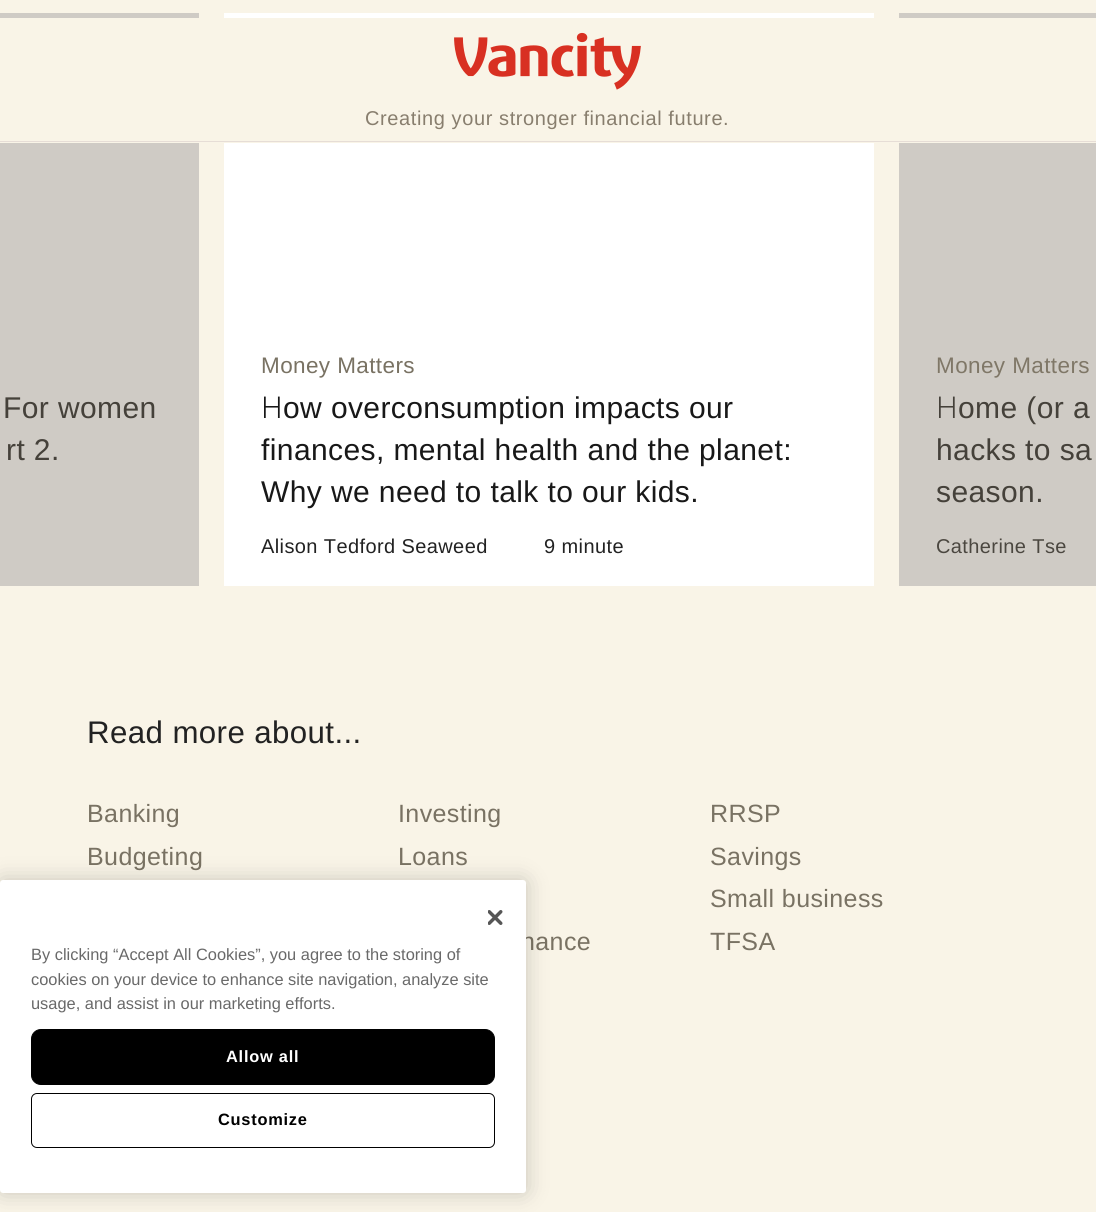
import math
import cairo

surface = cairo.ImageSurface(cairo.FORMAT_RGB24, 1096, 1212)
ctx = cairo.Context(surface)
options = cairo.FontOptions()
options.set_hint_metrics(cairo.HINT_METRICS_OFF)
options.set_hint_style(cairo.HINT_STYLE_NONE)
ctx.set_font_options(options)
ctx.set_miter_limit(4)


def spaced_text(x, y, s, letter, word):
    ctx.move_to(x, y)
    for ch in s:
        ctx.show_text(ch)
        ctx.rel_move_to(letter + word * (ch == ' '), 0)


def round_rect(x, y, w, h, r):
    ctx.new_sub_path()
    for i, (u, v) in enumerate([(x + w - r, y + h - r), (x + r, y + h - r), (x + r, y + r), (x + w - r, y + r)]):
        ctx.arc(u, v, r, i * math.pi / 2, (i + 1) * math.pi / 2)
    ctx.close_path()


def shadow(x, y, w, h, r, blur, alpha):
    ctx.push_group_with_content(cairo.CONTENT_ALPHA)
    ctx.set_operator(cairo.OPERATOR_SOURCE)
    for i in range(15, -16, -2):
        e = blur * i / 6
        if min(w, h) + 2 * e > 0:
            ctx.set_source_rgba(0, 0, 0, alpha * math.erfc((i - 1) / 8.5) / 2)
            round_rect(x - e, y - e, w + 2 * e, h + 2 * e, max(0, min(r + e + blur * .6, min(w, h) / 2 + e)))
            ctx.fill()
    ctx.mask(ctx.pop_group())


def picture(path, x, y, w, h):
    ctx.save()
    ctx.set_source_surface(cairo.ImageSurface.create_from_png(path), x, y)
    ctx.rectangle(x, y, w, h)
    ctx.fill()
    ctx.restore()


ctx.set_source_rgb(0.973, 0.957, 0.906)
ctx.paint()
ctx.set_source_rgb(0.812, 0.796, 0.773)
ctx.rectangle(0, 13, 199, 573)
ctx.fill()
ctx.set_source_rgb(1, 1, 1)
ctx.rectangle(224, 13, 650, 573)
ctx.fill()
ctx.set_source_rgb(0.812, 0.796, 0.773)
ctx.rectangle(899, 13, 197, 573)
ctx.fill()
ctx.set_source_rgb(0.973, 0.957, 0.906)
ctx.rectangle(0, 18, 1096, 125)
ctx.fill()
ctx.set_source_rgb(0.902, 0.867, 0.839)
ctx.rectangle(0, 141, 1096, 1)
ctx.fill()
picture("img1.png", 454, 32, 187, 58)
ctx.select_font_face("Liberation Sans")
ctx.set_font_size(20)
ctx.set_source_rgb(0.533, 0.494, 0.431)
spaced_text(365, 125, "Creating your stronger financial future.", 0.6, 0)
ctx.set_font_size(30)
ctx.set_source_rgb(0.271, 0.255, 0.227)
spaced_text(3, 418, "For women", 0.4, 0)
spaced_text(6, 460, "rt 2.", 0.4, 0)
ctx.set_font_size(22.5)
ctx.set_source_rgb(0.475, 0.447, 0.388)
spaced_text(261, 373, "Money Matters", 0.4, 0)
ctx.select_font_face("Noto Sans Light")
ctx.set_font_size(30)
ctx.set_source_rgb(0.094, 0.094, 0.094)
spaced_text(261, 418, "H", 0.4, 0)
ctx.select_font_face("Liberation Sans")
spaced_text(283, 418, "ow overconsumption impacts our", 0.4, 0)
spaced_text(261, 460, "finances, mental health and the planet:", 0.4, 0)
spaced_text(261, 502, "Why we need to talk to our kids.", 0.4, 0)
ctx.set_font_size(20)
ctx.set_source_rgb(0.133, 0.133, 0.133)
spaced_text(261, 553, "Alison Tedford Seaweed", 0.4, 0)
spaced_text(544, 553, "9 minute", 0.4, 0)
ctx.set_font_size(22.5)
ctx.set_source_rgb(0.498, 0.467, 0.404)
spaced_text(936, 373, "Money Matters", 0.4, 0)
ctx.select_font_face("Noto Sans Light")
ctx.set_font_size(30)
ctx.set_source_rgb(0.271, 0.255, 0.227)
spaced_text(936, 418, "H", 0.4, 0)
ctx.select_font_face("Liberation Sans")
spaced_text(958, 418, "ome (or a", 0.4, 0)
spaced_text(936, 460, "hacks to sa", 0.4, 0)
spaced_text(936, 502, "season.", 0.4, 0)
ctx.set_font_size(20)
ctx.set_source_rgb(0.294, 0.278, 0.251)
spaced_text(936, 553, "Catherine Tse", 0.4, 0)
ctx.set_font_size(31.25)
ctx.set_source_rgb(0.133, 0.133, 0.133)
spaced_text(87, 743, "Read more about...", 0.4, 0)
ctx.set_font_size(25)
ctx.set_source_rgb(0.475, 0.447, 0.388)
spaced_text(87, 822, "Banking", 0.4, 0)
spaced_text(398, 822, "Investing", 0.4, 0)
spaced_text(710, 822, "RRSP", 0.4, 0)
spaced_text(87, 865, "Budgeting", 0.4, 0)
spaced_text(398, 865, "Loans", 0.4, 0)
spaced_text(710, 865, "Savings", 0.4, 0)
spaced_text(710, 907, "Small business", 0.4, 0)
spaced_text(521, 950, "nance", 0.4, 0)
spaced_text(710, 950, "TFSA", 0.4, 0)
ctx.set_source_rgb(0, 0, 0)
shadow(0, 880, 526, 313, 3, 11, 0.2)
ctx.set_source_rgb(1, 1, 1)
round_rect(0, 880, 526, 313, 3)
ctx.fill()
picture("img2.png", 488, 910, 15, 15)
ctx.set_font_size(16.4)
ctx.set_source_rgb(0.412, 0.412, 0.412)
ctx.move_to(31, 960)
ctx.show_text("By clicking “Accept All Cookies”, you agree to the storing of")
ctx.move_to(31, 985)
ctx.show_text("cookies on your device to enhance site navigation, analyze site")
ctx.move_to(31, 1009)
ctx.show_text("usage, and assist in our marketing efforts.")
ctx.set_source_rgb(0, 0, 0)
round_rect(31.5, 1029.5, 463, 55, 9.5)
ctx.fill_preserve()
ctx.set_line_width(1)
ctx.stroke()
ctx.select_font_face("Liberation Sans", cairo.FONT_SLANT_NORMAL, cairo.FONT_WEIGHT_BOLD)
ctx.set_source_rgb(1, 1, 1)
spaced_text(226, 1062, "Allow all", 0.75, 0)
round_rect(31.5, 1093.5, 463, 54, 5.5)
ctx.set_source_rgb(0, 0, 0)
ctx.stroke()
spaced_text(218, 1125, "Customize", 0.75, 0)
surface.write_to_png("page.png")
